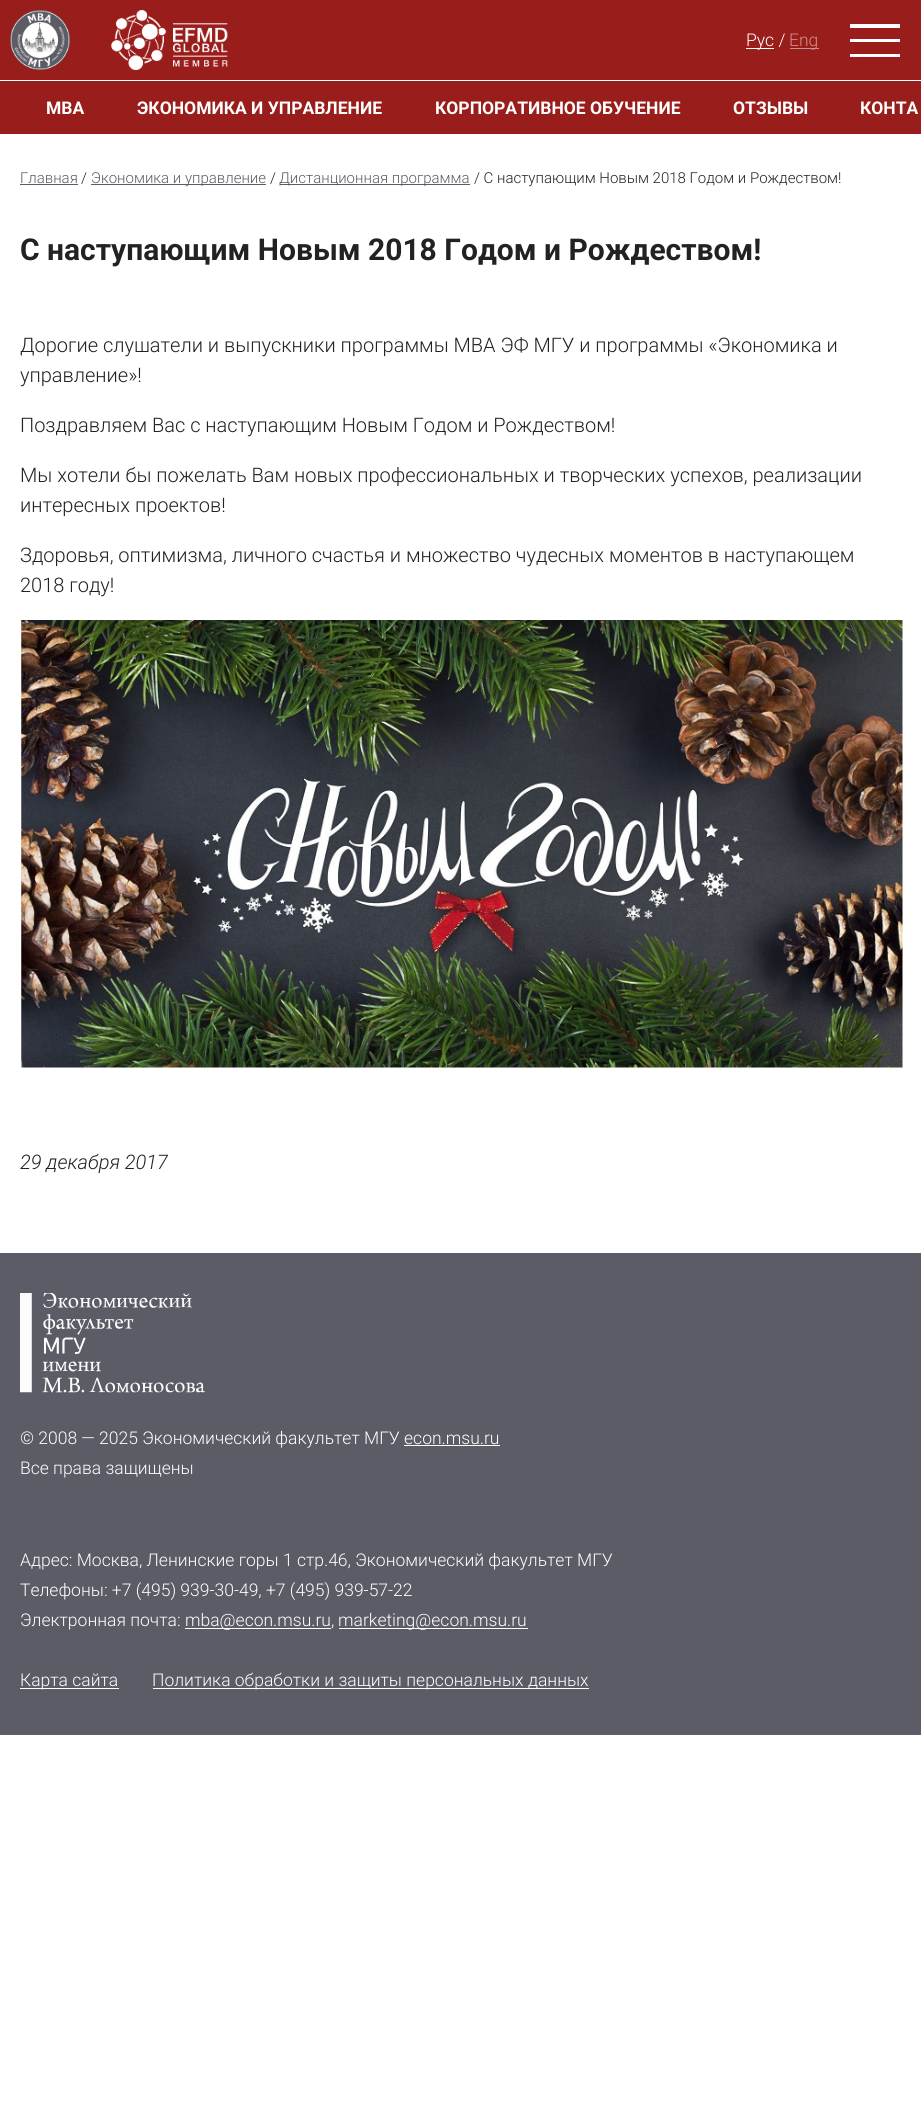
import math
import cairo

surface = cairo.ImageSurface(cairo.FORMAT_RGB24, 921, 2105)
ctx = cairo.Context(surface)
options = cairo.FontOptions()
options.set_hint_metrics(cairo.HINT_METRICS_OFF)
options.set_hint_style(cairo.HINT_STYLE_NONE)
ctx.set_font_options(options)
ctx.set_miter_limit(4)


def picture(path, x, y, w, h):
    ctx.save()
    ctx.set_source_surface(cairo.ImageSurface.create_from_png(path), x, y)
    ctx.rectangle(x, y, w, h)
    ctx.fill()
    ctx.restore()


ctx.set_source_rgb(1, 1, 1)
ctx.paint()
ctx.set_source_rgb(0.6, 0.114, 0.106)
ctx.rectangle(0, 0, 921, 80)
ctx.fill()
picture("img1.png", 10, 10, 60, 60)
picture("img2.png", 111, 10, 117, 60)
ctx.set_source_rgb(1, 1, 1)
ctx.rectangle(746, 48, 28, 1)
ctx.fill()
ctx.select_font_face("Roboto Light")
ctx.set_font_size(17.5)
ctx.move_to(746, 46)
ctx.show_text("Рус /")
ctx.set_source_rgb(0.8, 0.557, 0.553)
ctx.rectangle(790, 48, 29, 1)
ctx.fill()
ctx.move_to(789, 46)
ctx.show_text("Eng")
ctx.set_source_rgb(1, 1, 1)
ctx.rectangle(850, 24, 50, 4)
ctx.fill()
ctx.rectangle(850, 39, 50, 3)
ctx.fill()
ctx.rectangle(850, 54, 50, 3)
ctx.fill()
ctx.set_source_rgb(0.6, 0.114, 0.106)
ctx.rectangle(0, 81, 921, 53)
ctx.fill()
ctx.select_font_face("Roboto", cairo.FONT_SLANT_NORMAL, cairo.FONT_WEIGHT_BOLD)
ctx.set_source_rgb(1, 1, 1)
ctx.move_to(46, 114)
ctx.show_text("МВА")
ctx.move_to(137, 114)
ctx.show_text("ЭКОНОМИКА И УПРАВЛЕНИЕ")
ctx.move_to(435, 114)
ctx.show_text("КОРПОРАТИВНОЕ ОБУЧЕНИЕ")
ctx.move_to(733, 114)
ctx.show_text("ОТЗЫВЫ")
ctx.move_to(860, 114)
ctx.show_text("КОНТА")
ctx.select_font_face("Roboto Light")
ctx.set_font_size(15)
ctx.set_source_rgb(0.361, 0.361, 0.4)
ctx.move_to(20, 183)
ctx.show_text("Главная")
ctx.rectangle(20, 184, 58, 1)
ctx.fill()
ctx.set_source_rgb(0.133, 0.133, 0.133)
ctx.move_to(81, 183)
ctx.show_text("/")
ctx.set_source_rgb(0.361, 0.361, 0.4)
ctx.rectangle(91, 184, 175, 1)
ctx.fill()
ctx.move_to(91, 183)
ctx.show_text("Экономика и управление")
ctx.set_source_rgb(0.133, 0.133, 0.133)
ctx.move_to(270, 183)
ctx.show_text("/")
ctx.set_source_rgb(0.361, 0.361, 0.4)
ctx.rectangle(280, 184, 190, 1)
ctx.fill()
ctx.move_to(279, 183)
ctx.show_text("Дистанционная программа")
ctx.set_source_rgb(0.133, 0.133, 0.133)
ctx.move_to(474, 183)
ctx.show_text("/ С наступающим Новым 2018 Годом и Рождеством!")
ctx.select_font_face("Roboto", cairo.FONT_SLANT_NORMAL, cairo.FONT_WEIGHT_BOLD)
ctx.set_font_size(30)
ctx.move_to(20, 260)
ctx.show_text("С наступающим Новым 2018 Годом и Рождеством!")
ctx.select_font_face("Roboto Light")
ctx.set_font_size(20)
ctx.move_to(20, 352)
ctx.show_text("Дорогие слушатели и выпускники программы МВА ЭФ МГУ и программы «Экономика и")
ctx.move_to(20, 382)
ctx.show_text("управление»!")
ctx.move_to(20, 432)
ctx.show_text("Поздравляем Вас с наступающим Новым Годом и Рождеством!")
ctx.move_to(20, 482)
ctx.show_text("Мы хотели бы пожелать Вам новых профессиональных и творческих успехов, реализации")
ctx.move_to(20, 512)
ctx.show_text("интересных проектов!")
ctx.move_to(20, 562)
ctx.show_text("Здоровья, оптимизма, личного счастья и множество чудесных моментов в наступающем")
ctx.move_to(20, 592)
ctx.show_text("2018 году!")
picture("img3.png", 21, 620, 882, 448)
ctx.select_font_face("Roboto Light", cairo.FONT_SLANT_ITALIC)
ctx.move_to(20, 1169)
ctx.show_text("29 декабря 2017")
ctx.set_source_rgb(0.361, 0.361, 0.4)
ctx.rectangle(0, 1253, 921, 482)
ctx.fill()
picture("img4.png", 20, 1293, 185, 100)
ctx.select_font_face("Roboto Light")
ctx.set_font_size(17.5)
ctx.set_source_rgb(1, 1, 1)
ctx.move_to(20, 1444)
ctx.show_text("© 2008 — 2025 Экономический факультет МГУ econ.msu.ru")
ctx.rectangle(404, 1445, 96, 1)
ctx.fill()
ctx.move_to(20, 1474)
ctx.show_text("Все права защищены")
ctx.move_to(20, 1566)
ctx.show_text("Адрес: Москва, Ленинские горы 1 стр.46, Экономический факультет МГУ")
ctx.move_to(20, 1596)
ctx.show_text("Телефоны: +7 (495) 939-30-49, +7 (495) 939-57-22")
ctx.move_to(20, 1626)
ctx.show_text("Электронная почта:")
ctx.rectangle(185, 1628, 146, 1)
ctx.fill()
ctx.move_to(185, 1626)
ctx.show_text("mba@econ.msu.ru,")
ctx.rectangle(339, 1628, 189, 1)
ctx.fill()
ctx.move_to(338, 1626)
ctx.show_text("marketing@econ.msu.ru")
ctx.rectangle(20, 1688, 99, 1)
ctx.fill()
ctx.move_to(20, 1686)
ctx.show_text("Карта сайта")
ctx.rectangle(153, 1688, 436, 1)
ctx.fill()
ctx.move_to(152, 1686)
ctx.show_text("Политика обработки и защиты персональных данных")
surface.write_to_png("page.png")
